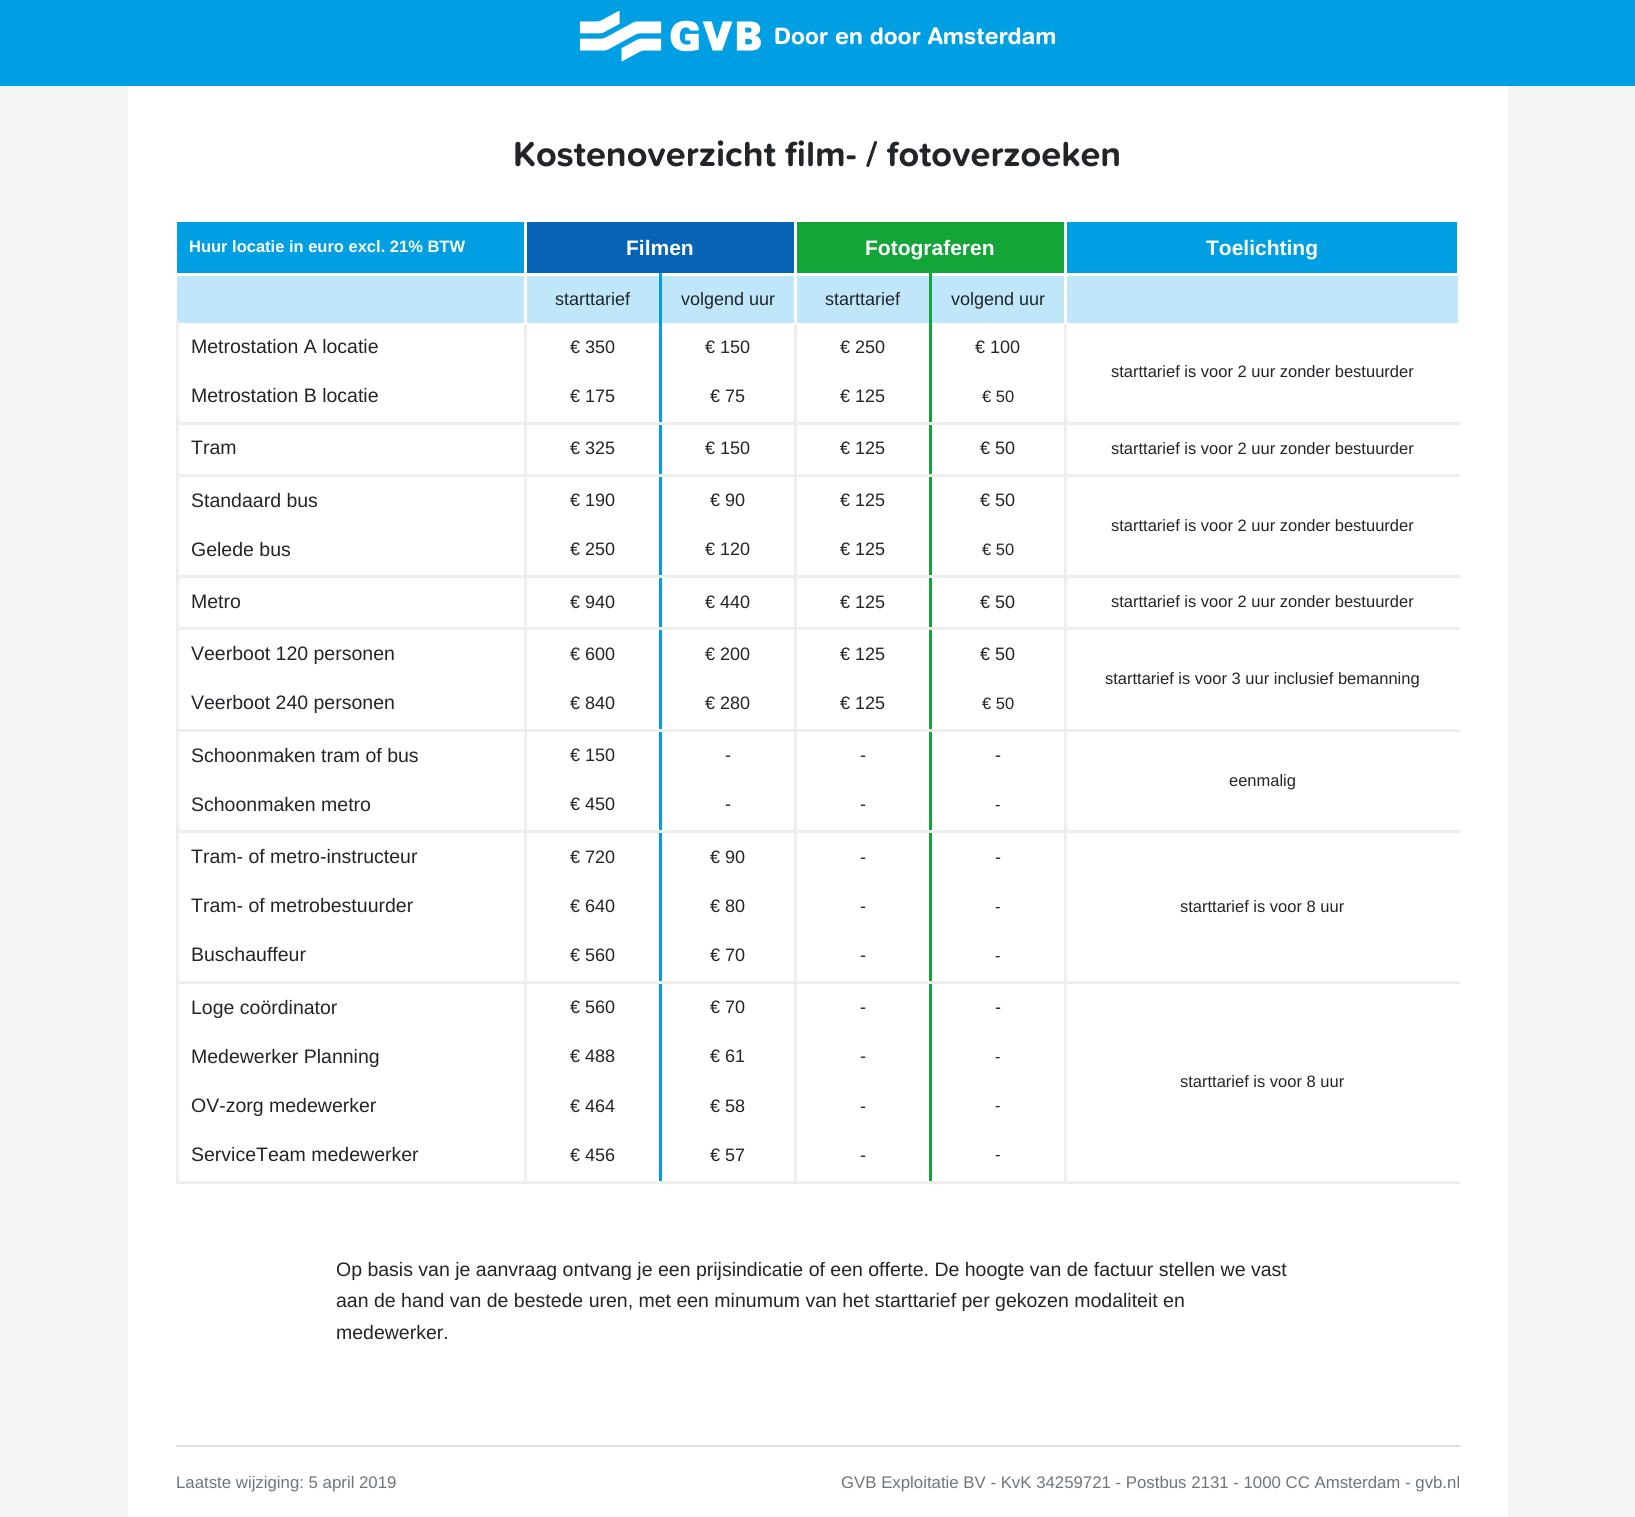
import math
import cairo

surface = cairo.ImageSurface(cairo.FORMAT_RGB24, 1635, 1517)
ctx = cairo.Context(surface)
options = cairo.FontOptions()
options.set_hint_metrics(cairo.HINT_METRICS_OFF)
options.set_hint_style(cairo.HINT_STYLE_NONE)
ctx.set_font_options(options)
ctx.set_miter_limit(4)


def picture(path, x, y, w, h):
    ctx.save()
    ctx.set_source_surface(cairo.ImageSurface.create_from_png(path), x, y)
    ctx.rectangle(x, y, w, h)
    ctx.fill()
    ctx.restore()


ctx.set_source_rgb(0.957, 0.961, 0.961)
ctx.paint()
ctx.set_source_rgb(0, 0.624, 0.89)
ctx.rectangle(0, 0, 1635, 86)
ctx.fill()
picture("img1.png", 579, 11, 477, 51)
ctx.set_source_rgb(1, 1, 1)
ctx.rectangle(128, 86, 1380, 1431)
ctx.fill()
ctx.select_font_face("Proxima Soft", cairo.FONT_SLANT_NORMAL, cairo.FONT_WEIGHT_BOLD)
ctx.set_font_size(36)
ctx.set_source_rgb(0.129, 0.145, 0.161)
ctx.move_to(513, 166)
ctx.show_text("Kostenoverzicht film- / fotoverzoeken")
ctx.set_source_rgb(0.867, 0.867, 0.867)
ctx.rectangle(176, 1445, 1284, 2)
ctx.fill()
ctx.set_source_rgb(0, 0.624, 0.89)
ctx.rectangle(177, 222, 347, 51)
ctx.fill()
ctx.select_font_face("Liberation Sans", cairo.FONT_SLANT_NORMAL, cairo.FONT_WEIGHT_BOLD)
ctx.set_font_size(16.5)
ctx.set_source_rgb(1, 1, 1)
ctx.move_to(189, 252)
ctx.show_text("Huur locatie in euro excl. 21% BTW")
ctx.set_source_rgb(0.031, 0.388, 0.71)
ctx.rectangle(527, 222, 267, 51)
ctx.fill()
ctx.set_font_size(21)
ctx.set_source_rgb(1, 1, 1)
ctx.move_to(626, 255)
ctx.show_text("Filmen")
ctx.set_source_rgb(0.075, 0.647, 0.22)
ctx.rectangle(797, 222, 267, 51)
ctx.fill()
ctx.set_source_rgb(1, 1, 1)
ctx.move_to(865, 255)
ctx.show_text("Fotograferen")
ctx.set_source_rgb(0, 0.624, 0.89)
ctx.rectangle(1067, 222, 390, 51)
ctx.fill()
ctx.set_source_rgb(1, 1, 1)
ctx.move_to(1206, 255)
ctx.show_text("Toelichting")
ctx.set_source_rgb(0.749, 0.906, 0.973)
ctx.rectangle(177, 276, 1281, 47)
ctx.fill()
ctx.set_source_rgb(0.933, 0.933, 0.933)
ctx.rectangle(929, 1181, 531, 3)
ctx.fill()
ctx.rectangle(1064, 981, 3, 203)
ctx.fill()
ctx.set_source_rgb(0.075, 0.647, 0.22)
ctx.rectangle(929, 981, 3, 203)
ctx.fill()
ctx.set_source_rgb(0.933, 0.933, 0.933)
ctx.rectangle(929, 981, 531, 3)
ctx.fill()
ctx.rectangle(1064, 830, 3, 154)
ctx.fill()
ctx.set_source_rgb(0.075, 0.647, 0.22)
ctx.rectangle(929, 830, 3, 154)
ctx.fill()
ctx.set_source_rgb(0.933, 0.933, 0.933)
ctx.rectangle(929, 830, 531, 3)
ctx.fill()
ctx.rectangle(1064, 729, 3, 104)
ctx.fill()
ctx.set_source_rgb(0.075, 0.647, 0.22)
ctx.rectangle(929, 729, 3, 104)
ctx.fill()
ctx.set_source_rgb(0.933, 0.933, 0.933)
ctx.rectangle(929, 729, 531, 3)
ctx.fill()
ctx.rectangle(1064, 627, 3, 105)
ctx.fill()
ctx.rectangle(1064, 627, 396, 3)
ctx.fill()
ctx.rectangle(1064, 575, 3, 55)
ctx.fill()
ctx.set_source_rgb(0.075, 0.647, 0.22)
ctx.rectangle(929, 627, 3, 105)
ctx.fill()
ctx.set_source_rgb(0.933, 0.933, 0.933)
ctx.rectangle(929, 627, 138, 3)
ctx.fill()
ctx.set_source_rgb(0.075, 0.647, 0.22)
ctx.rectangle(929, 575, 3, 55)
ctx.fill()
ctx.set_source_rgb(0.933, 0.933, 0.933)
ctx.rectangle(929, 575, 531, 3)
ctx.fill()
ctx.rectangle(1064, 474, 3, 104)
ctx.fill()
ctx.rectangle(1064, 474, 396, 3)
ctx.fill()
ctx.rectangle(1064, 422, 3, 55)
ctx.fill()
ctx.set_source_rgb(0.075, 0.647, 0.22)
ctx.rectangle(929, 474, 3, 104)
ctx.fill()
ctx.set_source_rgb(0.933, 0.933, 0.933)
ctx.rectangle(929, 474, 138, 3)
ctx.fill()
ctx.set_source_rgb(0.075, 0.647, 0.22)
ctx.rectangle(929, 422, 3, 55)
ctx.fill()
ctx.set_source_rgb(0.933, 0.933, 0.933)
ctx.rectangle(929, 422, 531, 3)
ctx.fill()
ctx.set_source_rgb(0.075, 0.647, 0.22)
ctx.rectangle(929, 273, 3, 152)
ctx.fill()
ctx.set_source_rgb(0.933, 0.933, 0.933)
ctx.rectangle(794, 1181, 138, 3)
ctx.fill()
ctx.rectangle(794, 981, 3, 203)
ctx.fill()
ctx.rectangle(794, 981, 138, 3)
ctx.fill()
ctx.rectangle(794, 830, 3, 154)
ctx.fill()
ctx.rectangle(794, 830, 138, 3)
ctx.fill()
ctx.rectangle(794, 729, 3, 104)
ctx.fill()
ctx.rectangle(794, 729, 138, 3)
ctx.fill()
ctx.rectangle(794, 627, 3, 105)
ctx.fill()
ctx.rectangle(794, 627, 138, 3)
ctx.fill()
ctx.rectangle(794, 575, 3, 55)
ctx.fill()
ctx.rectangle(794, 575, 138, 3)
ctx.fill()
ctx.rectangle(794, 474, 3, 104)
ctx.fill()
ctx.rectangle(794, 474, 138, 3)
ctx.fill()
ctx.rectangle(794, 422, 3, 55)
ctx.fill()
ctx.rectangle(794, 422, 138, 3)
ctx.fill()
ctx.rectangle(794, 321, 3, 104)
ctx.fill()
ctx.rectangle(659, 1181, 138, 3)
ctx.fill()
ctx.set_source_rgb(0, 0.624, 0.89)
ctx.rectangle(659, 981, 3, 203)
ctx.fill()
ctx.set_source_rgb(0.933, 0.933, 0.933)
ctx.rectangle(659, 981, 138, 3)
ctx.fill()
ctx.set_source_rgb(0, 0.624, 0.89)
ctx.rectangle(659, 830, 3, 154)
ctx.fill()
ctx.set_source_rgb(0.933, 0.933, 0.933)
ctx.rectangle(659, 830, 138, 3)
ctx.fill()
ctx.set_source_rgb(0, 0.624, 0.89)
ctx.rectangle(659, 729, 3, 104)
ctx.fill()
ctx.set_source_rgb(0.933, 0.933, 0.933)
ctx.rectangle(659, 729, 138, 3)
ctx.fill()
ctx.set_source_rgb(0, 0.624, 0.89)
ctx.rectangle(659, 627, 3, 105)
ctx.fill()
ctx.set_source_rgb(0.933, 0.933, 0.933)
ctx.rectangle(659, 627, 138, 3)
ctx.fill()
ctx.set_source_rgb(0, 0.624, 0.89)
ctx.rectangle(659, 575, 3, 55)
ctx.fill()
ctx.set_source_rgb(0.933, 0.933, 0.933)
ctx.rectangle(659, 575, 138, 3)
ctx.fill()
ctx.set_source_rgb(0, 0.624, 0.89)
ctx.rectangle(659, 474, 3, 104)
ctx.fill()
ctx.set_source_rgb(0.933, 0.933, 0.933)
ctx.rectangle(659, 474, 138, 3)
ctx.fill()
ctx.set_source_rgb(0, 0.624, 0.89)
ctx.rectangle(659, 422, 3, 55)
ctx.fill()
ctx.set_source_rgb(0.933, 0.933, 0.933)
ctx.rectangle(659, 422, 138, 3)
ctx.fill()
ctx.set_source_rgb(0, 0.624, 0.89)
ctx.rectangle(659, 273, 3, 152)
ctx.fill()
ctx.set_source_rgb(0.933, 0.933, 0.933)
ctx.rectangle(524, 1181, 138, 3)
ctx.fill()
ctx.rectangle(524, 981, 3, 203)
ctx.fill()
ctx.rectangle(524, 981, 138, 3)
ctx.fill()
ctx.rectangle(524, 830, 3, 154)
ctx.fill()
ctx.rectangle(524, 830, 138, 3)
ctx.fill()
ctx.rectangle(524, 729, 3, 104)
ctx.fill()
ctx.rectangle(524, 729, 138, 3)
ctx.fill()
ctx.rectangle(524, 627, 3, 105)
ctx.fill()
ctx.rectangle(524, 627, 138, 3)
ctx.fill()
ctx.rectangle(524, 575, 3, 55)
ctx.fill()
ctx.rectangle(524, 575, 138, 3)
ctx.fill()
ctx.rectangle(524, 474, 3, 104)
ctx.fill()
ctx.rectangle(524, 474, 138, 3)
ctx.fill()
ctx.rectangle(524, 422, 3, 55)
ctx.fill()
ctx.rectangle(524, 422, 138, 3)
ctx.fill()
ctx.rectangle(524, 321, 3, 104)
ctx.fill()
ctx.set_source_rgb(1, 1, 1)
ctx.rectangle(524, 273, 3, 51)
ctx.fill()
ctx.select_font_face("Liberation Sans")
ctx.set_font_size(18)
ctx.set_source_rgb(0.129, 0.145, 0.161)
ctx.move_to(555, 305)
ctx.show_text("starttarief")
ctx.move_to(681, 305)
ctx.show_text("volgend uur")
ctx.set_source_rgb(1, 1, 1)
ctx.rectangle(794, 273, 3, 51)
ctx.fill()
ctx.set_source_rgb(0.129, 0.145, 0.161)
ctx.move_to(825, 305)
ctx.show_text("starttarief")
ctx.move_to(951, 305)
ctx.show_text("volgend uur")
ctx.set_source_rgb(0.933, 0.933, 0.933)
ctx.rectangle(1064, 321, 3, 104)
ctx.fill()
ctx.set_source_rgb(1, 1, 1)
ctx.rectangle(1064, 273, 3, 51)
ctx.fill()
ctx.set_font_size(19.5)
ctx.set_source_rgb(0.129, 0.145, 0.161)
ctx.move_to(191, 353)
ctx.show_text("Metrostation A locatie")
ctx.set_font_size(18)
ctx.move_to(570, 353)
ctx.show_text("€ 350")
ctx.move_to(705, 353)
ctx.show_text("€ 150")
ctx.move_to(840, 353)
ctx.show_text("€ 250")
ctx.move_to(975, 353)
ctx.show_text("€ 100")
ctx.set_font_size(16.5)
ctx.move_to(1111, 377)
ctx.show_text("starttarief is voor 2 uur zonder bestuurder")
ctx.set_source_rgb(0.933, 0.933, 0.933)
ctx.rectangle(176, 1181, 351, 3)
ctx.fill()
ctx.rectangle(176, 981, 3, 203)
ctx.fill()
ctx.rectangle(176, 981, 351, 3)
ctx.fill()
ctx.rectangle(176, 830, 3, 154)
ctx.fill()
ctx.rectangle(176, 830, 351, 3)
ctx.fill()
ctx.rectangle(176, 729, 3, 104)
ctx.fill()
ctx.rectangle(176, 729, 351, 3)
ctx.fill()
ctx.rectangle(176, 627, 3, 105)
ctx.fill()
ctx.rectangle(176, 627, 351, 3)
ctx.fill()
ctx.rectangle(176, 575, 3, 55)
ctx.fill()
ctx.rectangle(176, 575, 351, 3)
ctx.fill()
ctx.rectangle(176, 474, 3, 104)
ctx.fill()
ctx.rectangle(176, 474, 351, 3)
ctx.fill()
ctx.rectangle(176, 422, 3, 55)
ctx.fill()
ctx.rectangle(176, 422, 351, 3)
ctx.fill()
ctx.rectangle(176, 321, 3, 104)
ctx.fill()
ctx.set_font_size(19.5)
ctx.set_source_rgb(0.129, 0.145, 0.161)
ctx.move_to(191, 402)
ctx.show_text("Metrostation B locatie")
ctx.set_font_size(18)
ctx.move_to(570, 402)
ctx.show_text("€ 175")
ctx.move_to(710, 402)
ctx.show_text("€ 75")
ctx.move_to(840, 402)
ctx.show_text("€ 125")
ctx.set_font_size(16.5)
ctx.move_to(982, 402)
ctx.show_text("€ 50")
ctx.set_font_size(19.5)
ctx.move_to(191, 454)
ctx.show_text("Tram")
ctx.set_font_size(18)
ctx.move_to(570, 454)
ctx.show_text("€ 325")
ctx.move_to(705, 454)
ctx.show_text("€ 150")
ctx.move_to(840, 454)
ctx.show_text("€ 125")
ctx.move_to(980, 454)
ctx.show_text("€ 50")
ctx.set_font_size(16.5)
ctx.move_to(1111, 454)
ctx.show_text("starttarief is voor 2 uur zonder bestuurder")
ctx.set_font_size(19.5)
ctx.move_to(191, 507)
ctx.show_text("Standaard bus")
ctx.set_font_size(18)
ctx.move_to(570, 506)
ctx.show_text("€ 190")
ctx.move_to(710, 506)
ctx.show_text("€ 90")
ctx.move_to(840, 506)
ctx.show_text("€ 125")
ctx.move_to(980, 506)
ctx.show_text("€ 50")
ctx.set_font_size(16.5)
ctx.move_to(1111, 531)
ctx.show_text("starttarief is voor 2 uur zonder bestuurder")
ctx.set_font_size(19.5)
ctx.move_to(191, 556)
ctx.show_text("Gelede bus")
ctx.set_font_size(18)
ctx.move_to(570, 555)
ctx.show_text("€ 250")
ctx.move_to(705, 555)
ctx.show_text("€ 120")
ctx.move_to(840, 555)
ctx.show_text("€ 125")
ctx.set_font_size(16.5)
ctx.move_to(982, 555)
ctx.show_text("€ 50")
ctx.set_font_size(19.5)
ctx.move_to(191, 608)
ctx.show_text("Metro")
ctx.set_font_size(18)
ctx.move_to(570, 608)
ctx.show_text("€ 940")
ctx.move_to(705, 608)
ctx.show_text("€ 440")
ctx.move_to(840, 608)
ctx.show_text("€ 125")
ctx.move_to(980, 608)
ctx.show_text("€ 50")
ctx.set_font_size(16.5)
ctx.move_to(1111, 607)
ctx.show_text("starttarief is voor 2 uur zonder bestuurder")
ctx.set_font_size(19.5)
ctx.move_to(191, 660)
ctx.show_text("Veerboot 120 personen")
ctx.set_font_size(18)
ctx.move_to(570, 660)
ctx.show_text("€ 600")
ctx.move_to(705, 660)
ctx.show_text("€ 200")
ctx.move_to(840, 660)
ctx.show_text("€ 125")
ctx.move_to(980, 660)
ctx.show_text("€ 50")
ctx.set_font_size(16.5)
ctx.move_to(1105, 684)
ctx.show_text("starttarief is voor 3 uur inclusief bemanning")
ctx.set_font_size(19.5)
ctx.move_to(191, 709)
ctx.show_text("Veerboot 240 personen")
ctx.set_font_size(18)
ctx.move_to(570, 709)
ctx.show_text("€ 840")
ctx.move_to(705, 709)
ctx.show_text("€ 280")
ctx.move_to(840, 709)
ctx.show_text("€ 125")
ctx.set_font_size(16.5)
ctx.move_to(982, 709)
ctx.show_text("€ 50")
ctx.set_font_size(19.5)
ctx.move_to(191, 762)
ctx.show_text("Schoonmaken tram of bus")
ctx.set_font_size(18)
ctx.move_to(570, 761)
ctx.show_text("€ 150")
ctx.move_to(725, 761)
ctx.show_text("-")
ctx.move_to(860, 761)
ctx.show_text("-")
ctx.move_to(995, 761)
ctx.show_text("-")
ctx.set_font_size(16.5)
ctx.move_to(1229, 786)
ctx.show_text("eenmalig")
ctx.set_font_size(19.5)
ctx.move_to(191, 811)
ctx.show_text("Schoonmaken metro")
ctx.set_font_size(18)
ctx.move_to(570, 810)
ctx.show_text("€ 450")
ctx.move_to(725, 810)
ctx.show_text("-")
ctx.move_to(860, 810)
ctx.show_text("-")
ctx.set_font_size(16.5)
ctx.move_to(995, 810)
ctx.show_text("-")
ctx.set_font_size(19.5)
ctx.move_to(191, 863)
ctx.show_text("Tram- of metro-instructeur")
ctx.set_font_size(18)
ctx.move_to(570, 863)
ctx.show_text("€ 720")
ctx.move_to(710, 863)
ctx.show_text("€ 90")
ctx.move_to(860, 863)
ctx.show_text("-")
ctx.move_to(995, 863)
ctx.show_text("-")
ctx.set_font_size(16.5)
ctx.move_to(1180, 912)
ctx.show_text("starttarief is voor 8 uur")
ctx.set_font_size(19.5)
ctx.move_to(191, 912)
ctx.show_text("Tram- of metrobestuurder")
ctx.set_font_size(18)
ctx.move_to(570, 912)
ctx.show_text("€ 640")
ctx.move_to(710, 912)
ctx.show_text("€ 80")
ctx.move_to(860, 912)
ctx.show_text("-")
ctx.set_font_size(16.5)
ctx.move_to(995, 912)
ctx.show_text("-")
ctx.set_font_size(19.5)
ctx.move_to(191, 961)
ctx.show_text("Buschauffeur")
ctx.set_font_size(18)
ctx.move_to(570, 961)
ctx.show_text("€ 560")
ctx.move_to(710, 961)
ctx.show_text("€ 70")
ctx.move_to(860, 961)
ctx.show_text("-")
ctx.set_font_size(16.5)
ctx.move_to(995, 961)
ctx.show_text("-")
ctx.set_font_size(19.5)
ctx.move_to(191, 1014)
ctx.show_text("Loge coördinator")
ctx.set_font_size(18)
ctx.move_to(570, 1013)
ctx.show_text("€ 560")
ctx.move_to(710, 1013)
ctx.show_text("€ 70")
ctx.move_to(860, 1013)
ctx.show_text("-")
ctx.move_to(995, 1013)
ctx.show_text("-")
ctx.set_font_size(16.5)
ctx.move_to(1180, 1087)
ctx.show_text("starttarief is voor 8 uur")
ctx.set_font_size(19.5)
ctx.move_to(191, 1063)
ctx.show_text("Medewerker Planning")
ctx.set_font_size(18)
ctx.move_to(570, 1062)
ctx.show_text("€ 488")
ctx.move_to(710, 1062)
ctx.show_text("€ 61")
ctx.move_to(860, 1062)
ctx.show_text("-")
ctx.set_font_size(16.5)
ctx.move_to(995, 1062)
ctx.show_text("-")
ctx.set_font_size(19.5)
ctx.move_to(191, 1112)
ctx.show_text("OV-zorg medewerker")
ctx.set_font_size(18)
ctx.move_to(570, 1112)
ctx.show_text("€ 464")
ctx.move_to(710, 1112)
ctx.show_text("€ 58")
ctx.move_to(860, 1112)
ctx.show_text("-")
ctx.set_font_size(16.5)
ctx.move_to(995, 1111)
ctx.show_text("-")
ctx.set_font_size(19.5)
ctx.move_to(191, 1161)
ctx.show_text("ServiceTeam medewerker")
ctx.set_font_size(18)
ctx.move_to(570, 1161)
ctx.show_text("€ 456")
ctx.move_to(710, 1161)
ctx.show_text("€ 57")
ctx.move_to(860, 1161)
ctx.show_text("-")
ctx.set_font_size(16.5)
ctx.move_to(995, 1160)
ctx.show_text("-")
ctx.set_font_size(19.5)
ctx.move_to(336, 1276)
ctx.show_text("Op basis van je aanvraag ontvang je een prijsindicatie of een offerte. De hoogte van de factuur stellen we vast")
ctx.move_to(336, 1307)
ctx.show_text("aan de hand van de bestede uren, met een minumum van het starttarief per gekozen modaliteit en")
ctx.move_to(336, 1339)
ctx.show_text("medewerker.")
ctx.set_font_size(16.8)
ctx.set_source_rgb(0.424, 0.459, 0.49)
ctx.move_to(176, 1488)
ctx.show_text("Laatste wijziging: 5 april 2019")
ctx.move_to(841, 1488)
ctx.show_text("GVB Exploitatie BV - KvK 34259721 - Postbus 2131 - 1000 CC Amsterdam - gvb.nl")
surface.write_to_png("page.png")
